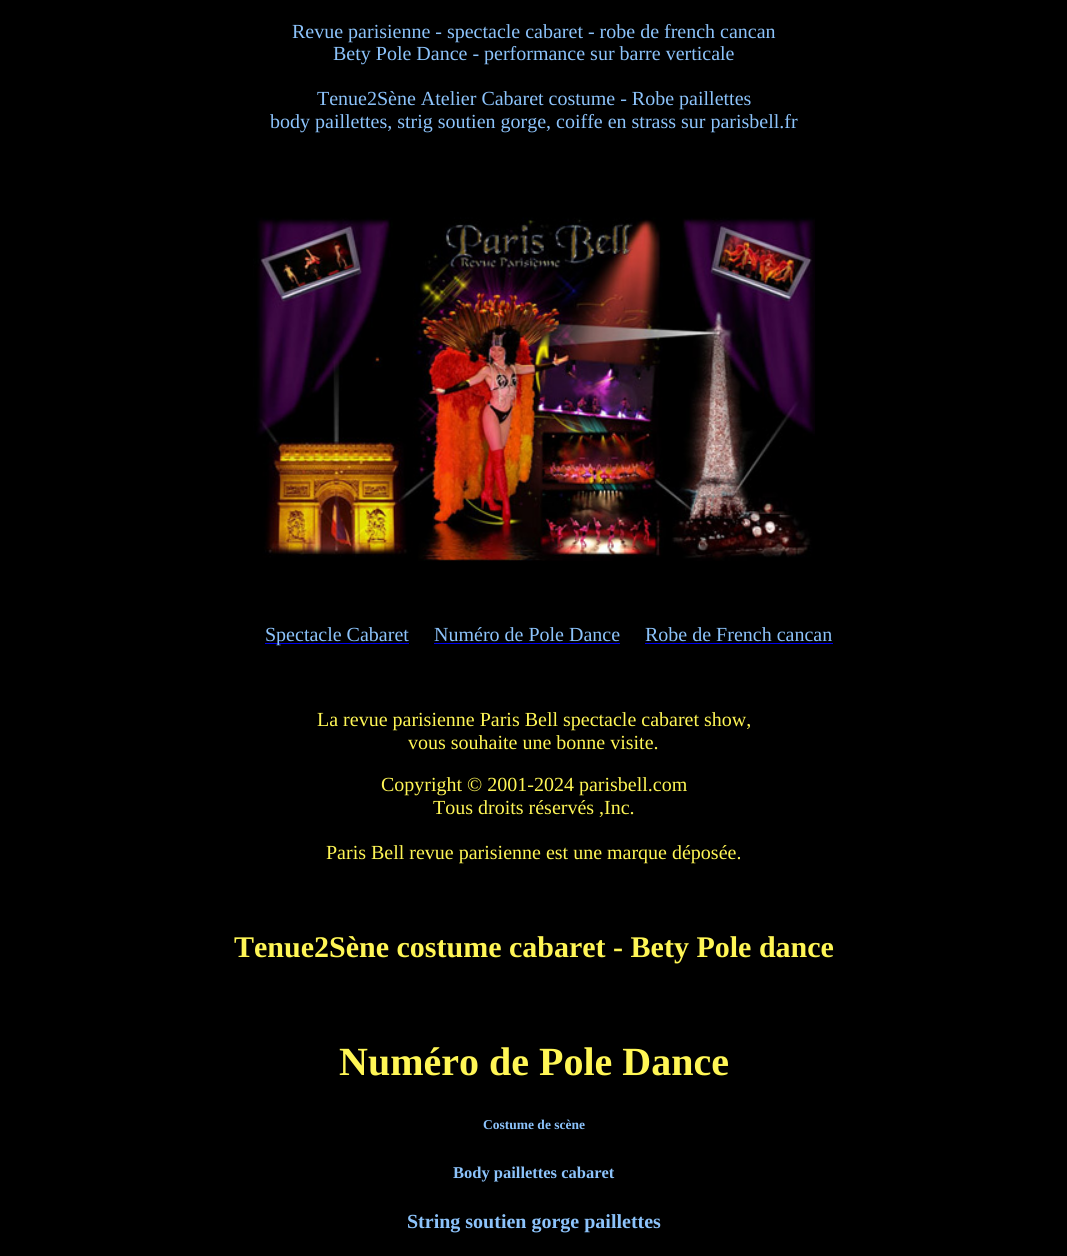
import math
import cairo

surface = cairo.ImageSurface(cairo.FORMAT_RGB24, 1067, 1256)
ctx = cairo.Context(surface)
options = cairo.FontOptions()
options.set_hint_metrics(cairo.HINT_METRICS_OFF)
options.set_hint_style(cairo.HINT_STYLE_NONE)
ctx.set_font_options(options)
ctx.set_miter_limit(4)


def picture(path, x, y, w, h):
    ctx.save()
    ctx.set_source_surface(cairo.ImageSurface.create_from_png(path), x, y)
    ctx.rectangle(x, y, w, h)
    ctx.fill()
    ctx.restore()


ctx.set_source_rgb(0, 0, 0)
ctx.paint()
ctx.select_font_face("Liberation Serif")
ctx.set_font_size(20)
ctx.set_source_rgb(0.549, 0.765, 0.984)
ctx.move_to(292, 38)
ctx.show_text("Revue parisienne - spectacle cabaret - robe de french cancan")
ctx.move_to(333, 60)
ctx.show_text("Bety Pole Dance - performance sur barre verticale")
ctx.move_to(317, 105)
ctx.show_text("Tenue2Sène Atelier Cabaret costume - Robe paillettes")
ctx.move_to(270, 128)
ctx.show_text("body paillettes, strig soutien gorge, coiffe en strass sur parisbell.fr")
picture("img1.png", 253, 217, 562, 344)
ctx.set_source_rgb(0, 0, 0.933)
ctx.rectangle(265, 643, 144, 1)
ctx.fill()
ctx.set_source_rgb(0.549, 0.765, 0.984)
ctx.move_to(265, 641)
ctx.show_text("Spectacle Cabaret")
ctx.move_to(434, 641)
ctx.show_text("Numéro de Pole Dance")
ctx.set_source_rgb(0, 0, 0.933)
ctx.rectangle(434, 643, 186, 1)
ctx.fill()
ctx.set_source_rgb(0.549, 0.765, 0.984)
ctx.move_to(645, 641)
ctx.show_text("Robe de French cancan")
ctx.set_source_rgb(0, 0, 0.933)
ctx.rectangle(645, 643, 188, 1)
ctx.fill()
ctx.set_source_rgb(1, 0.961, 0.333)
ctx.move_to(317, 726)
ctx.show_text("La revue parisienne Paris Bell spectacle cabaret show,")
ctx.move_to(408, 749)
ctx.show_text("vous souhaite une bonne visite.")
ctx.move_to(381, 791)
ctx.show_text("Copyright © 2001-2024 parisbell.com")
ctx.move_to(433, 814)
ctx.show_text("Tous droits réservés ,Inc.")
ctx.move_to(326, 859)
ctx.show_text("Paris Bell revue parisienne est une marque déposée.")
ctx.select_font_face("Liberation Serif", cairo.FONT_SLANT_NORMAL, cairo.FONT_WEIGHT_BOLD)
ctx.set_font_size(30)
ctx.move_to(234, 957)
ctx.show_text("Tenue2Sène costume cabaret - Bety Pole dance")
ctx.set_font_size(40)
ctx.move_to(339, 1075)
ctx.show_text("Numéro de Pole Dance")
ctx.set_font_size(13.5)
ctx.set_source_rgb(0.549, 0.765, 0.984)
ctx.move_to(483, 1129)
ctx.show_text("Costume de scène")
ctx.set_font_size(16.5)
ctx.move_to(453, 1178)
ctx.show_text("Body paillettes cabaret")
ctx.set_font_size(20)
ctx.move_to(407, 1228)
ctx.show_text("String soutien gorge paillettes")
surface.write_to_png("page.png")
